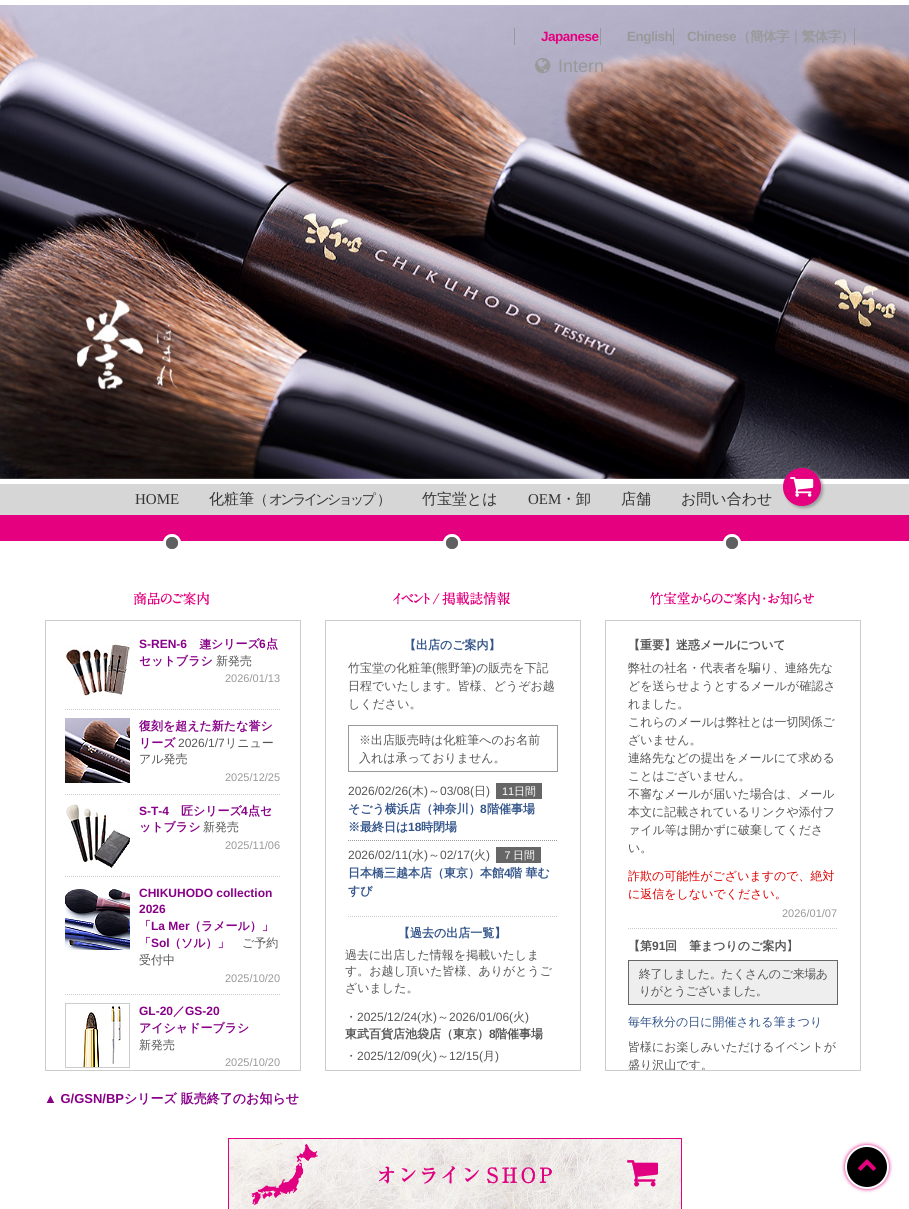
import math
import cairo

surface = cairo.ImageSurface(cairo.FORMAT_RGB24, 909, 1209)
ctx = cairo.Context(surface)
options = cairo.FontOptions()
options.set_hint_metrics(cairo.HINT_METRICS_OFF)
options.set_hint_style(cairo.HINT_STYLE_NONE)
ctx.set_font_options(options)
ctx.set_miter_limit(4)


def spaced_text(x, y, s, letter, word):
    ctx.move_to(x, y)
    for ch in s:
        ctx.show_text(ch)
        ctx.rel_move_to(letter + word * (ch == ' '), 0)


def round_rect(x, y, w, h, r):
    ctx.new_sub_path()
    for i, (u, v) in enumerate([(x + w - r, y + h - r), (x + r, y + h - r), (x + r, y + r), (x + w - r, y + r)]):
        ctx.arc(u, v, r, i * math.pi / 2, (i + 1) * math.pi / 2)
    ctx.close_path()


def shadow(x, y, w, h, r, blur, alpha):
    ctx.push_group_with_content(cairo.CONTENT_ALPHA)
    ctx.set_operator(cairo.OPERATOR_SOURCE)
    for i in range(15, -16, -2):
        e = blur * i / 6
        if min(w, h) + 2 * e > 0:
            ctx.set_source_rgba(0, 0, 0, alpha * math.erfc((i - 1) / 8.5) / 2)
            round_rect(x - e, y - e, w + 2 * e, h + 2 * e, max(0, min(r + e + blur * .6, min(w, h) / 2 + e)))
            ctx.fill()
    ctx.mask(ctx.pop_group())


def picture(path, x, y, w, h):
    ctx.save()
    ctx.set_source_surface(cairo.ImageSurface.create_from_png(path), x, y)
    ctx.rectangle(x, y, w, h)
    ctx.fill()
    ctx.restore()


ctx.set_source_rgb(1, 1, 1)
ctx.paint()
picture("img1.png", 0, 5, 909, 474)
ctx.set_source_rgb(0.6, 0.6, 0.6)
ctx.rectangle(514, 28, 1, 17)
ctx.fill()
ctx.select_font_face("Liberation Sans", cairo.FONT_SLANT_NORMAL, cairo.FONT_WEIGHT_BOLD)
ctx.set_font_size(13.5)
ctx.set_source_rgb(0.894, 0, 0.498)
spaced_text(541, 41, "Japanese", -0.5, 0)
ctx.set_source_rgb(0.6, 0.6, 0.6)
ctx.rectangle(600, 28, 1, 17)
ctx.fill()
spaced_text(627, 41, "English", -0.5, 0)
ctx.rectangle(673, 28, 1, 17)
ctx.fill()
spaced_text(687, 41, "Chinese", -0.5, 0)
ctx.select_font_face("WenQuanYi Zen Hei", cairo.FONT_SLANT_NORMAL, cairo.FONT_WEIGHT_BOLD)
spaced_text(737, 41, "（簡体字｜繁体字）", -0.5, 0)
ctx.rectangle(854, 28, 1, 17)
ctx.fill()
picture("img2.png", 535, 57, 16, 17)
ctx.select_font_face("Liberation Sans")
ctx.set_font_size(18)
ctx.move_to(558, 72)
ctx.show_text("Intern")
ctx.set_source_rgb(0.839, 0.839, 0.839)
ctx.rectangle(0, 484, 909, 31)
ctx.fill()
ctx.set_source_rgb(0.894, 0, 0.498)
ctx.rectangle(0, 515, 909, 26)
ctx.fill()
ctx.select_font_face("Liberation Serif")
ctx.set_font_size(15)
ctx.set_source_rgb(0.2, 0.2, 0.2)
ctx.move_to(135, 504)
ctx.show_text("HOME")
ctx.select_font_face("WenQuanYi Zen Hei Medium")
ctx.move_to(209, 504)
ctx.show_text("化粧筆")
ctx.set_font_size(14)
spaced_text(254, 504, "（", 1, 0)
spaced_text(269, 504, "オンラインショップ", -2.75, 0)
spaced_text(377, 504, "）", 1, 0)
ctx.set_font_size(15)
ctx.move_to(422, 504)
ctx.show_text("竹宝堂とは")
ctx.select_font_face("Liberation Serif")
ctx.move_to(528, 504)
ctx.show_text("OEM")
ctx.select_font_face("WenQuanYi Zen Hei Medium")
ctx.move_to(561, 504)
ctx.show_text("・卸")
ctx.move_to(621, 504)
ctx.show_text("店舗")
ctx.move_to(681, 504)
ctx.show_text("お問い合わせ")
ctx.set_source_rgb(0.6, 0.6, 0.6)
shadow(785, 470, 38, 38, 19, 1.5, 1)
ctx.set_source_rgb(0.894, 0, 0.498)
ctx.arc(802, 487, 19, 0, 2 * math.pi)
ctx.fill()
picture("img3.png", 790, 477, 24, 20)
picture("img4.png", 163, 534, 18, 15)
picture("img5.png", 134, 592, 75, 13)
ctx.rectangle(45.5, 620.5, 255, 450)
ctx.set_source_rgb(0.8, 0.8, 0.8)
ctx.set_line_width(1)
ctx.stroke()
ctx.new_path()
ctx.move_to(65, 709.5)
ctx.line_to(281, 709.5)
ctx.set_dash([1, 1])
ctx.stroke()
picture("img6.png", 65, 644, 65, 55)
ctx.select_font_face("Liberation Sans", cairo.FONT_SLANT_NORMAL, cairo.FONT_WEIGHT_BOLD)
ctx.set_font_size(12)
ctx.set_source_rgb(0.533, 0, 0.533)
ctx.move_to(139, 648)
ctx.show_text("S-REN-6")
ctx.select_font_face("WenQuanYi Zen Hei", cairo.FONT_SLANT_NORMAL, cairo.FONT_WEIGHT_BOLD)
ctx.move_to(199, 648)
ctx.show_text("連シリーズ")
ctx.select_font_face("Liberation Sans", cairo.FONT_SLANT_NORMAL, cairo.FONT_WEIGHT_BOLD)
ctx.move_to(259, 648)
ctx.show_text("6")
ctx.select_font_face("WenQuanYi Zen Hei", cairo.FONT_SLANT_NORMAL, cairo.FONT_WEIGHT_BOLD)
ctx.move_to(266, 648)
ctx.show_text("点")
ctx.move_to(139, 665)
ctx.show_text("セットブラシ")
ctx.select_font_face("WenQuanYi Zen Hei Medium")
ctx.set_source_rgb(0.333, 0.333, 0.333)
ctx.move_to(216, 665)
ctx.show_text("新発売")
ctx.select_font_face("Liberation Sans")
ctx.set_font_size(11)
ctx.set_source_rgb(0.6, 0.6, 0.6)
ctx.move_to(225, 682)
ctx.show_text("2026/01/13")
ctx.new_path()
ctx.move_to(65, 794.5)
ctx.line_to(281, 794.5)
ctx.set_source_rgb(0.8, 0.8, 0.8)
ctx.stroke()
picture("img7.png", 65, 718, 65, 65)
ctx.select_font_face("WenQuanYi Zen Hei", cairo.FONT_SLANT_NORMAL, cairo.FONT_WEIGHT_BOLD)
ctx.set_font_size(12)
ctx.set_source_rgb(0.533, 0, 0.533)
ctx.move_to(139, 730)
ctx.show_text("復刻を超えた新たな誉シ")
ctx.move_to(139, 747)
ctx.show_text("リーズ")
ctx.select_font_face("Liberation Sans")
ctx.set_source_rgb(0.333, 0.333, 0.333)
ctx.move_to(178, 747)
ctx.show_text("2026/1/7")
ctx.select_font_face("WenQuanYi Zen Hei Medium")
ctx.move_to(225, 747)
ctx.show_text("リニュー")
ctx.move_to(139, 763)
ctx.show_text("アル発売")
ctx.select_font_face("Liberation Sans")
ctx.set_font_size(11)
ctx.set_source_rgb(0.6, 0.6, 0.6)
ctx.move_to(225, 781)
ctx.show_text("2025/12/25")
ctx.new_path()
ctx.move_to(65, 876.5)
ctx.line_to(281, 876.5)
ctx.set_source_rgb(0.8, 0.8, 0.8)
ctx.stroke()
picture("img8.png", 66, 804, 64, 64)
ctx.select_font_face("Liberation Sans", cairo.FONT_SLANT_NORMAL, cairo.FONT_WEIGHT_BOLD)
ctx.set_font_size(12)
ctx.set_source_rgb(0.533, 0, 0.533)
ctx.move_to(139, 815)
ctx.show_text("S-T-4")
ctx.select_font_face("WenQuanYi Zen Hei", cairo.FONT_SLANT_NORMAL, cairo.FONT_WEIGHT_BOLD)
ctx.move_to(181, 815)
ctx.show_text("匠シリーズ")
ctx.select_font_face("Liberation Sans", cairo.FONT_SLANT_NORMAL, cairo.FONT_WEIGHT_BOLD)
ctx.move_to(241, 815)
ctx.show_text("4")
ctx.select_font_face("WenQuanYi Zen Hei", cairo.FONT_SLANT_NORMAL, cairo.FONT_WEIGHT_BOLD)
ctx.move_to(248, 815)
ctx.show_text("点セ")
ctx.move_to(139, 831)
ctx.show_text("ットブラシ")
ctx.select_font_face("WenQuanYi Zen Hei Medium")
ctx.set_source_rgb(0.333, 0.333, 0.333)
ctx.move_to(203, 831)
ctx.show_text("新発売")
ctx.select_font_face("Liberation Sans")
ctx.set_font_size(11)
ctx.set_source_rgb(0.6, 0.6, 0.6)
ctx.move_to(225, 849)
ctx.show_text("2025/11/06")
ctx.new_path()
ctx.move_to(65, 994.5)
ctx.line_to(281, 994.5)
ctx.set_source_rgb(0.8, 0.8, 0.8)
ctx.stroke()
picture("img9.png", 65, 886, 65, 64)
ctx.select_font_face("Liberation Sans", cairo.FONT_SLANT_NORMAL, cairo.FONT_WEIGHT_BOLD)
ctx.set_font_size(12)
ctx.set_source_rgb(0.533, 0, 0.533)
ctx.move_to(139, 897)
ctx.show_text("CHIKUHODO collection")
ctx.move_to(139, 913)
ctx.show_text("2026")
ctx.select_font_face("WenQuanYi Zen Hei", cairo.FONT_SLANT_NORMAL, cairo.FONT_WEIGHT_BOLD)
ctx.move_to(139, 930)
ctx.show_text("「")
ctx.select_font_face("Liberation Sans", cairo.FONT_SLANT_NORMAL, cairo.FONT_WEIGHT_BOLD)
ctx.move_to(151, 930)
ctx.show_text("La Mer")
ctx.select_font_face("WenQuanYi Zen Hei", cairo.FONT_SLANT_NORMAL, cairo.FONT_WEIGHT_BOLD)
ctx.move_to(189, 930)
ctx.show_text("（ラメール）」")
ctx.move_to(139, 947)
ctx.show_text("「")
ctx.select_font_face("Liberation Sans", cairo.FONT_SLANT_NORMAL, cairo.FONT_WEIGHT_BOLD)
ctx.move_to(151, 947)
ctx.show_text("Sol")
ctx.select_font_face("WenQuanYi Zen Hei", cairo.FONT_SLANT_NORMAL, cairo.FONT_WEIGHT_BOLD)
ctx.move_to(169, 947)
ctx.show_text("（ソル）」")
ctx.select_font_face("WenQuanYi Zen Hei Medium")
ctx.set_source_rgb(0.333, 0.333, 0.333)
ctx.move_to(242, 947)
ctx.show_text("ご予約")
ctx.move_to(139, 964)
ctx.show_text("受付中")
ctx.select_font_face("Liberation Sans")
ctx.set_font_size(11)
ctx.set_source_rgb(0.6, 0.6, 0.6)
ctx.move_to(225, 982)
ctx.show_text("2025/10/20")
picture("img10.png", 65, 1003, 65, 65)
ctx.select_font_face("Liberation Sans", cairo.FONT_SLANT_NORMAL, cairo.FONT_WEIGHT_BOLD)
ctx.set_font_size(12)
ctx.set_source_rgb(0.533, 0, 0.533)
ctx.move_to(139, 1015)
ctx.show_text("GL-20")
ctx.select_font_face("WenQuanYi Zen Hei", cairo.FONT_SLANT_NORMAL, cairo.FONT_WEIGHT_BOLD)
ctx.move_to(173, 1015)
ctx.show_text("／")
ctx.select_font_face("Liberation Sans", cairo.FONT_SLANT_NORMAL, cairo.FONT_WEIGHT_BOLD)
ctx.move_to(185, 1015)
ctx.show_text("GS-20")
ctx.select_font_face("WenQuanYi Zen Hei", cairo.FONT_SLANT_NORMAL, cairo.FONT_WEIGHT_BOLD)
ctx.move_to(139, 1032)
ctx.show_text("アイシャドーブラシ")
ctx.select_font_face("WenQuanYi Zen Hei Medium")
ctx.set_source_rgb(0.333, 0.333, 0.333)
ctx.move_to(139, 1049)
ctx.show_text("新発売")
ctx.select_font_face("Liberation Sans")
ctx.set_font_size(11)
ctx.set_source_rgb(0.6, 0.6, 0.6)
ctx.move_to(225, 1066)
ctx.show_text("2025/10/20")
picture("img4.png", 443, 534, 18, 15)
picture("img11.png", 393, 592, 117, 13)
ctx.rectangle(325.5, 620.5, 255, 450)
ctx.set_source_rgb(0.8, 0.8, 0.8)
ctx.set_dash([])
ctx.stroke()
ctx.new_path()
ctx.move_to(348, 916.5)
ctx.line_to(558, 916.5)
ctx.set_dash([1, 1])
ctx.stroke()
ctx.select_font_face("WenQuanYi Zen Hei", cairo.FONT_SLANT_NORMAL, cairo.FONT_WEIGHT_BOLD)
ctx.set_font_size(12)
ctx.set_source_rgb(0.204, 0.333, 0.545)
ctx.move_to(404, 649)
ctx.show_text("【出店のご案内】")
ctx.select_font_face("WenQuanYi Zen Hei Medium")
ctx.set_source_rgb(0.333, 0.333, 0.333)
ctx.move_to(348, 672)
ctx.show_text("竹宝堂の化粧筆")
ctx.select_font_face("Liberation Sans")
ctx.move_to(432, 672)
ctx.show_text("(")
ctx.select_font_face("WenQuanYi Zen Hei Medium")
ctx.move_to(436, 672)
ctx.show_text("熊野筆")
ctx.select_font_face("Liberation Sans")
ctx.move_to(472, 672)
ctx.show_text(")")
ctx.select_font_face("WenQuanYi Zen Hei Medium")
ctx.move_to(476, 672)
ctx.show_text("の販売を下記")
ctx.move_to(348, 690)
ctx.show_text("日程でいたします。皆様、どうぞお越")
ctx.move_to(348, 708)
ctx.show_text("しください。")
ctx.rectangle(348.5, 725.5, 209, 46)
ctx.set_source_rgb(0.6, 0.6, 0.6)
ctx.set_dash([])
ctx.stroke()
ctx.set_source_rgb(0.333, 0.333, 0.333)
ctx.move_to(359, 744)
ctx.show_text("※出店販売時は化粧筆へのお名前")
ctx.move_to(359, 762)
ctx.show_text("入れは承っておりません。")
ctx.select_font_face("Liberation Sans")
ctx.move_to(348, 795)
ctx.show_text("2026/02/26(")
ctx.select_font_face("WenQuanYi Zen Hei Medium")
ctx.move_to(412, 795)
ctx.show_text("木")
ctx.select_font_face("Liberation Sans")
ctx.move_to(424, 795)
ctx.show_text(")")
ctx.select_font_face("WenQuanYi Zen Hei Medium")
ctx.move_to(428, 795)
ctx.show_text("～")
ctx.select_font_face("Liberation Sans")
ctx.move_to(440, 795)
ctx.show_text("03/08(")
ctx.select_font_face("WenQuanYi Zen Hei Medium")
ctx.move_to(474, 795)
ctx.show_text("日")
ctx.select_font_face("Liberation Sans")
ctx.move_to(486, 795)
ctx.show_text(")")
ctx.set_source_rgb(0.4, 0.4, 0.4)
ctx.rectangle(496, 783, 46, 16)
ctx.fill()
ctx.set_font_size(11)
ctx.set_source_rgb(1, 1, 1)
ctx.move_to(502, 795)
ctx.show_text("11")
ctx.select_font_face("WenQuanYi Zen Hei Medium")
ctx.move_to(514, 795)
ctx.show_text("日間")
ctx.new_path()
ctx.move_to(348, 840.5)
ctx.line_to(558, 840.5)
ctx.set_source_rgb(0.6, 0.6, 0.6)
ctx.set_dash([1, 1])
ctx.stroke()
ctx.select_font_face("WenQuanYi Zen Hei", cairo.FONT_SLANT_NORMAL, cairo.FONT_WEIGHT_BOLD)
ctx.set_font_size(12)
ctx.set_source_rgb(0.204, 0.333, 0.545)
ctx.move_to(348, 813)
ctx.show_text("そごう横浜店（神奈川）")
ctx.select_font_face("Liberation Sans", cairo.FONT_SLANT_NORMAL, cairo.FONT_WEIGHT_BOLD)
ctx.move_to(480, 813)
ctx.show_text("8")
ctx.select_font_face("WenQuanYi Zen Hei", cairo.FONT_SLANT_NORMAL, cairo.FONT_WEIGHT_BOLD)
ctx.move_to(487, 813)
ctx.show_text("階催事場")
ctx.move_to(348, 831)
ctx.show_text("※最終日は")
ctx.select_font_face("Liberation Sans", cairo.FONT_SLANT_NORMAL, cairo.FONT_WEIGHT_BOLD)
ctx.move_to(408, 831)
ctx.show_text("18")
ctx.select_font_face("WenQuanYi Zen Hei", cairo.FONT_SLANT_NORMAL, cairo.FONT_WEIGHT_BOLD)
ctx.move_to(421, 831)
ctx.show_text("時閉場")
ctx.select_font_face("Liberation Sans")
ctx.set_source_rgb(0.333, 0.333, 0.333)
ctx.move_to(348, 859)
ctx.show_text("2026/02/11(")
ctx.select_font_face("WenQuanYi Zen Hei Medium")
ctx.move_to(412, 859)
ctx.show_text("水")
ctx.select_font_face("Liberation Sans")
ctx.move_to(424, 859)
ctx.show_text(")")
ctx.select_font_face("WenQuanYi Zen Hei Medium")
ctx.move_to(428, 859)
ctx.show_text("～")
ctx.select_font_face("Liberation Sans")
ctx.move_to(440, 859)
ctx.show_text("02/17(")
ctx.select_font_face("WenQuanYi Zen Hei Medium")
ctx.move_to(474, 859)
ctx.show_text("火")
ctx.select_font_face("Liberation Sans")
ctx.move_to(486, 859)
ctx.show_text(")")
ctx.set_source_rgb(0.4, 0.4, 0.4)
ctx.rectangle(496, 847, 45, 16)
ctx.fill()
ctx.select_font_face("WenQuanYi Zen Hei Medium")
ctx.set_font_size(11)
ctx.set_source_rgb(1, 1, 1)
ctx.move_to(502, 859)
ctx.show_text("７日間")
ctx.select_font_face("WenQuanYi Zen Hei", cairo.FONT_SLANT_NORMAL, cairo.FONT_WEIGHT_BOLD)
ctx.set_font_size(12)
ctx.set_source_rgb(0.204, 0.333, 0.545)
ctx.move_to(348, 877)
ctx.show_text("日本橋三越本店（東京）本館")
ctx.select_font_face("Liberation Sans", cairo.FONT_SLANT_NORMAL, cairo.FONT_WEIGHT_BOLD)
ctx.move_to(504, 877)
ctx.show_text("4")
ctx.select_font_face("WenQuanYi Zen Hei", cairo.FONT_SLANT_NORMAL, cairo.FONT_WEIGHT_BOLD)
ctx.move_to(510, 877)
ctx.show_text("階 華む")
ctx.move_to(348, 895)
ctx.show_text("すび")
ctx.move_to(398, 937)
ctx.show_text("【過去の出店一覧】")
ctx.select_font_face("WenQuanYi Zen Hei Medium")
ctx.set_source_rgb(0.333, 0.333, 0.333)
ctx.move_to(345, 959)
ctx.show_text("過去に出店した情報を掲載いたしま")
ctx.move_to(345, 975)
ctx.show_text("す。お越し頂いた皆様、ありがとうご")
ctx.move_to(345, 992)
ctx.show_text("ざいました。")
ctx.move_to(345, 1021)
ctx.show_text("・")
ctx.select_font_face("Liberation Sans")
ctx.move_to(357, 1021)
ctx.show_text("2025/12/24(")
ctx.select_font_face("WenQuanYi Zen Hei Medium")
ctx.move_to(421, 1021)
ctx.show_text("水")
ctx.select_font_face("Liberation Sans")
ctx.move_to(433, 1021)
ctx.show_text(")")
ctx.select_font_face("WenQuanYi Zen Hei Medium")
ctx.move_to(437, 1021)
ctx.show_text("～")
ctx.select_font_face("Liberation Sans")
ctx.move_to(449, 1021)
ctx.show_text("2026/01/06(")
ctx.select_font_face("WenQuanYi Zen Hei Medium")
ctx.move_to(513, 1021)
ctx.show_text("火")
ctx.select_font_face("Liberation Sans")
ctx.move_to(525, 1021)
ctx.show_text(")")
ctx.select_font_face("WenQuanYi Zen Hei", cairo.FONT_SLANT_NORMAL, cairo.FONT_WEIGHT_BOLD)
ctx.move_to(345, 1038)
ctx.show_text("東武百貨店池袋店（東京）")
ctx.select_font_face("Liberation Sans", cairo.FONT_SLANT_NORMAL, cairo.FONT_WEIGHT_BOLD)
ctx.move_to(489, 1038)
ctx.show_text("8")
ctx.select_font_face("WenQuanYi Zen Hei", cairo.FONT_SLANT_NORMAL, cairo.FONT_WEIGHT_BOLD)
ctx.move_to(495, 1038)
ctx.show_text("階催事場")
ctx.select_font_face("WenQuanYi Zen Hei Medium")
ctx.move_to(345, 1060)
ctx.show_text("・")
ctx.select_font_face("Liberation Sans")
ctx.move_to(357, 1060)
ctx.show_text("2025/12/09(")
ctx.select_font_face("WenQuanYi Zen Hei Medium")
ctx.move_to(421, 1060)
ctx.show_text("火")
ctx.select_font_face("Liberation Sans")
ctx.move_to(433, 1060)
ctx.show_text(")")
ctx.select_font_face("WenQuanYi Zen Hei Medium")
ctx.move_to(437, 1060)
ctx.show_text("～")
ctx.select_font_face("Liberation Sans")
ctx.move_to(449, 1060)
ctx.show_text("12/15(")
ctx.select_font_face("WenQuanYi Zen Hei Medium")
ctx.move_to(483, 1060)
ctx.show_text("月")
ctx.select_font_face("Liberation Sans")
ctx.move_to(495, 1060)
ctx.show_text(")")
picture("img4.png", 723, 534, 18, 15)
picture("img12.png", 650, 592, 164, 13)
ctx.rectangle(605.5, 620.5, 255, 450)
ctx.set_source_rgb(0.8, 0.8, 0.8)
ctx.set_dash([])
ctx.stroke()
ctx.new_path()
ctx.move_to(628, 928.5)
ctx.line_to(838, 928.5)
ctx.set_dash([1, 1])
ctx.stroke()
ctx.select_font_face("WenQuanYi Zen Hei", cairo.FONT_SLANT_NORMAL, cairo.FONT_WEIGHT_BOLD)
ctx.set_source_rgb(0.333, 0.333, 0.333)
ctx.move_to(628, 649)
ctx.show_text("【重要】迷惑メールについて")
ctx.select_font_face("WenQuanYi Zen Hei Medium")
ctx.move_to(628, 672)
ctx.show_text("弊社の社名・代表者を騙り、連絡先な")
ctx.move_to(628, 690)
ctx.show_text("どを送らせようとするメールが確認さ")
ctx.move_to(628, 708)
ctx.show_text("れました。")
ctx.move_to(628, 726)
ctx.show_text("これらのメールは弊社とは一切関係ご")
ctx.move_to(628, 744)
ctx.show_text("ざいません。")
ctx.move_to(628, 762)
ctx.show_text("連絡先などの提出をメールにて求める")
ctx.move_to(628, 780)
ctx.show_text("ことはございません。")
ctx.move_to(628, 798)
ctx.show_text("不審なメールが届いた場合は、メール")
ctx.move_to(628, 816)
ctx.show_text("本文に記載されているリンクや添付フ")
ctx.move_to(628, 834)
ctx.show_text("ァイル等は開かずに破棄してくださ")
ctx.move_to(628, 852)
ctx.show_text("い。")
ctx.set_source_rgb(0.867, 0, 0)
ctx.move_to(628, 880)
ctx.show_text("詐欺の可能性がございますので、絶対")
ctx.move_to(628, 898)
ctx.show_text("に返信をしないでください。")
ctx.select_font_face("Liberation Sans")
ctx.set_font_size(11)
ctx.set_source_rgb(0.6, 0.6, 0.6)
ctx.move_to(782, 917)
ctx.show_text("2026/01/07")
ctx.select_font_face("WenQuanYi Zen Hei", cairo.FONT_SLANT_NORMAL, cairo.FONT_WEIGHT_BOLD)
ctx.set_font_size(12)
ctx.set_source_rgb(0.333, 0.333, 0.333)
ctx.move_to(628, 950)
ctx.show_text("【第")
ctx.select_font_face("Liberation Sans", cairo.FONT_SLANT_NORMAL, cairo.FONT_WEIGHT_BOLD)
ctx.move_to(652, 950)
ctx.show_text("91")
ctx.select_font_face("WenQuanYi Zen Hei", cairo.FONT_SLANT_NORMAL, cairo.FONT_WEIGHT_BOLD)
ctx.move_to(665, 950)
ctx.show_text("回　筆まつりのご案内】")
ctx.set_source_rgb(0.933, 0.933, 0.933)
ctx.rectangle(628.5, 960.5, 209, 44)
ctx.fill_preserve()
ctx.set_source_rgb(0.4, 0.4, 0.4)
ctx.set_dash([])
ctx.stroke()
ctx.select_font_face("WenQuanYi Zen Hei Medium")
ctx.set_source_rgb(0.333, 0.333, 0.333)
spaced_text(639, 978, "終了しました。たくさんのご来場あ", -0.4, 0)
spaced_text(639, 995, "りがとうございました。", -0.6, 0)
ctx.set_source_rgb(0.204, 0.333, 0.545)
ctx.move_to(628, 1026)
ctx.show_text("毎年秋分の日に開催される筆まつり")
ctx.set_source_rgb(0.333, 0.333, 0.333)
ctx.move_to(628, 1051)
ctx.show_text("皆様にお楽しみいただけるイベントが")
ctx.save()
ctx.rectangle(606, 621, 254, 449)
ctx.clip()
ctx.move_to(628, 1069)
ctx.show_text("盛り沢山です。")
ctx.restore()
ctx.select_font_face("Liberation Sans", cairo.FONT_SLANT_NORMAL, cairo.FONT_WEIGHT_BOLD)
ctx.set_font_size(13)
ctx.set_source_rgb(0.533, 0, 0.533)
ctx.move_to(44, 1103)
ctx.show_text("▲ G/GSN/BP")
ctx.select_font_face("WenQuanYi Zen Hei", cairo.FONT_SLANT_NORMAL, cairo.FONT_WEIGHT_BOLD)
ctx.move_to(124, 1103)
ctx.show_text("シリーズ 販売終了のお知らせ")
picture("img13.png", 228, 1138, 454, 71)
ctx.set_source_rgb(0.894, 0, 0.498)
shadow(845, 1145, 44, 44, 22, 2, 1)
ctx.set_source_rgb(0, 0, 0)
ctx.arc(867, 1167, 21, 0, 2 * math.pi)
ctx.fill_preserve()
ctx.set_source_rgb(1, 1, 1)
ctx.set_line_width(2)
ctx.stroke()
picture("img14.png", 858, 1159, 18, 12)
surface.write_to_png("page.png")
